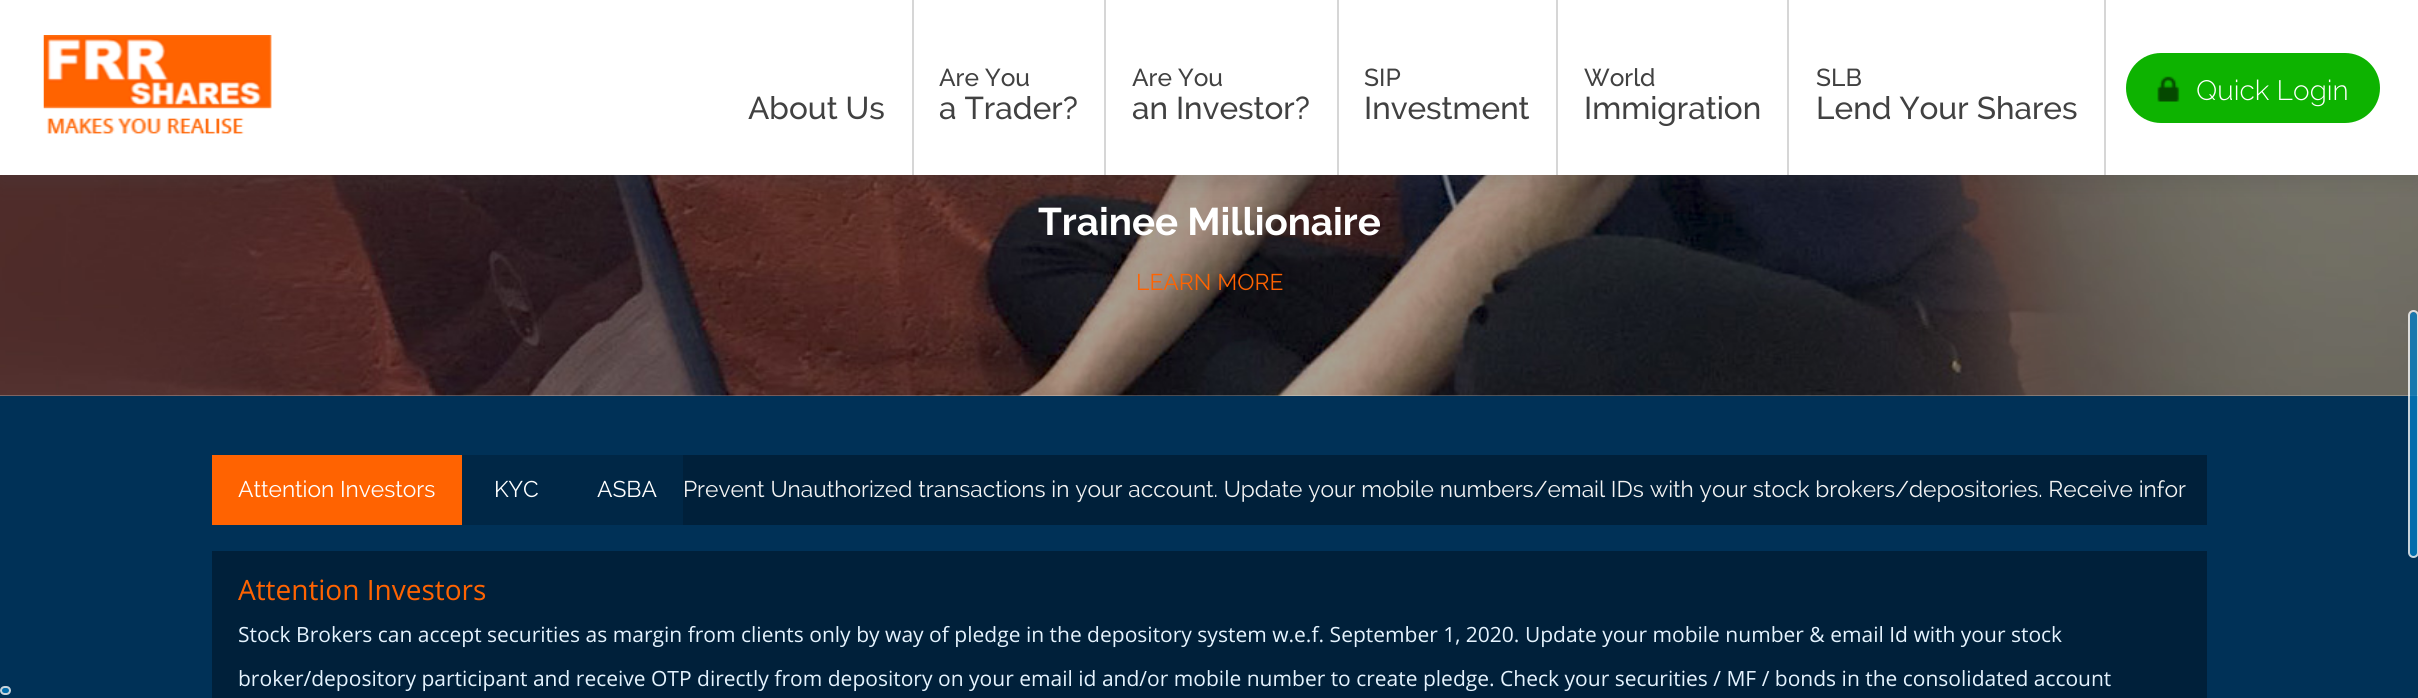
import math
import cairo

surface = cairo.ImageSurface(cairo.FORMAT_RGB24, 2418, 698)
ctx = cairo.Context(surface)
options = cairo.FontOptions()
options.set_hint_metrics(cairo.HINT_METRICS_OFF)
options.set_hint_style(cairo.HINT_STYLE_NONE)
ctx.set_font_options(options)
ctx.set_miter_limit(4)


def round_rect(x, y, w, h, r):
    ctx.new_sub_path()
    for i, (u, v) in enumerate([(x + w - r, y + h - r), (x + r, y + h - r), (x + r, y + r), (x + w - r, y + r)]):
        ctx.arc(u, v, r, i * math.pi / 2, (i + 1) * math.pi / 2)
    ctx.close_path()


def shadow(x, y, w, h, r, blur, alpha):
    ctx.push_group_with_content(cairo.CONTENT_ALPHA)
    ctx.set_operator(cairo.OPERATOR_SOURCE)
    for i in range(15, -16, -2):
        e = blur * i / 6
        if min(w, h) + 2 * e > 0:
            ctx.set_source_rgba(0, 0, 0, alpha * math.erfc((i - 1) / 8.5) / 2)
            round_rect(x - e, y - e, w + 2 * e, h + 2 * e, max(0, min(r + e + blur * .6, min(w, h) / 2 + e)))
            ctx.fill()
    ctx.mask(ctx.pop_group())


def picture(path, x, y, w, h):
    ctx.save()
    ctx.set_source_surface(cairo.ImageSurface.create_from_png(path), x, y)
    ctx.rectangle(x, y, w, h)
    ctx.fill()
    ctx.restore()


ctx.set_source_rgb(1, 1, 1)
ctx.paint()
picture("img3.png", 0, 175, 2418, 221)
ctx.set_source_rgb(0.267, 0.267, 0.267)
shadow(0, 9, 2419, 175, 0, 9, 0.2)
ctx.set_source_rgb(1, 1, 1)
ctx.rectangle(0, 0, 2418, 175)
ctx.fill()
picture("img1.png", 43, 35, 229, 99)
ctx.set_source_rgb(0.839, 0.839, 0.839)
ctx.rectangle(912, 0, 2, 175)
ctx.fill()
ctx.select_font_face("Raleway Medium")
ctx.set_font_size(31.5)
ctx.set_source_rgb(0.255, 0.255, 0.255)
ctx.move_to(748, 119)
ctx.show_text("About Us")
ctx.set_source_rgb(0.839, 0.839, 0.839)
ctx.rectangle(1104, 0, 2, 175)
ctx.fill()
ctx.set_font_size(24.5)
ctx.set_source_rgb(0.255, 0.255, 0.255)
ctx.move_to(939, 86)
ctx.show_text("Are You")
ctx.set_font_size(31.5)
ctx.move_to(939, 119)
ctx.show_text("a Trader?")
ctx.set_source_rgb(0.839, 0.839, 0.839)
ctx.rectangle(1337, 0, 2, 175)
ctx.fill()
ctx.set_font_size(24.5)
ctx.set_source_rgb(0.255, 0.255, 0.255)
ctx.move_to(1132, 86)
ctx.show_text("Are You")
ctx.set_font_size(31.5)
ctx.move_to(1132, 119)
ctx.show_text("an Investor?")
ctx.set_source_rgb(0.839, 0.839, 0.839)
ctx.rectangle(1556, 0, 2, 175)
ctx.fill()
ctx.set_font_size(24.5)
ctx.set_source_rgb(0.255, 0.255, 0.255)
ctx.move_to(1364, 86)
ctx.show_text("SIP")
ctx.set_font_size(31.5)
ctx.move_to(1364, 119)
ctx.show_text("Investment")
ctx.set_source_rgb(0.839, 0.839, 0.839)
ctx.rectangle(1787, 0, 2, 175)
ctx.fill()
ctx.set_font_size(24.5)
ctx.set_source_rgb(0.255, 0.255, 0.255)
ctx.move_to(1584, 86)
ctx.show_text("World")
ctx.set_font_size(31.5)
ctx.move_to(1584, 119)
ctx.show_text("Immigration")
ctx.set_source_rgb(0.839, 0.839, 0.839)
ctx.rectangle(2104, 0, 2, 175)
ctx.fill()
ctx.set_font_size(24.5)
ctx.set_source_rgb(0.255, 0.255, 0.255)
ctx.move_to(1816, 86)
ctx.show_text("SLB")
ctx.set_font_size(31.5)
ctx.move_to(1816, 119)
ctx.show_text("Lend Your Shares")
ctx.set_source_rgb(0.051, 0.702, 0)
round_rect(2126, 53, 254, 70, 35)
ctx.fill()
picture("img2.png", 2157, 76, 23, 26)
ctx.select_font_face("Raleway Light")
ctx.set_font_size(28)
ctx.set_source_rgb(1, 1, 1)
ctx.move_to(2196, 100)
ctx.show_text("Quick Login")
ctx.select_font_face("Raleway", cairo.FONT_SLANT_NORMAL, cairo.FONT_WEIGHT_BOLD)
ctx.set_font_size(38.5)
ctx.move_to(1038, 235)
ctx.show_text("Trainee Millionaire")
ctx.select_font_face("Raleway")
ctx.set_font_size(22.75)
ctx.set_source_rgb(1, 0.388, 0.004)
ctx.move_to(1136, 290)
ctx.show_text("LEARN MORE")
ctx.set_source_rgb(0, 0.192, 0.341)
ctx.rectangle(0, 396, 2418, 302)
ctx.fill()
ctx.set_source_rgb(0, 0.125, 0.227)
ctx.rectangle(683, 455, 1524, 70)
ctx.fill()
ctx.set_source_rgb(0, 0.153, 0.275)
ctx.rectangle(462, 455, 221, 70)
ctx.fill()
ctx.set_source_rgb(1, 0.388, 0.004)
ctx.rectangle(212, 455, 250, 70)
ctx.fill()
ctx.set_source_rgb(1, 1, 1)
ctx.move_to(238, 497)
ctx.show_text("Attention Investors")
ctx.move_to(494, 497)
ctx.show_text("KYC")
ctx.move_to(597, 497)
ctx.show_text("ASBA")
ctx.set_source_rgb(0.953, 0.953, 0.953)
ctx.move_to(683, 497)
ctx.show_text("Prevent Unauthorized transactions in your account. Update your mobile numbers/email IDs with your stock brokers/depositories. Receive infor")
ctx.set_source_rgb(0, 0.125, 0.227)
ctx.rectangle(212, 551, 1995, 147)
ctx.fill()
ctx.select_font_face("Open Sans")
ctx.set_font_size(28)
ctx.set_source_rgb(1, 0.388, 0.004)
ctx.move_to(238, 600)
ctx.show_text("Attention Investors")
ctx.set_font_size(21)
ctx.set_source_rgb(0.898, 0.953, 0.996)
ctx.move_to(238, 642)
ctx.show_text("Stock Brokers can accept securities as margin from clients only by way of pledge in the depository system w.e.f. September 1, 2020. Update your mobile number & email Id with your stock")
ctx.move_to(238, 686)
ctx.show_text("broker/depository participant and receive OTP directly from depository on your email id and/or mobile number to create pledge. Check your securities / MF / bonds in the consolidated account")
ctx.set_source_rgba(0.004, 0.486, 0.765, 0.78)
round_rect(2410, 312, 7, 245, 3.5)
ctx.fill()
round_rect(2409, 311, 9, 246, 4.5)
ctx.set_source_rgba(1, 1, 1, 0.78)
ctx.stroke()
ctx.set_source_rgb(0.004, 0.424, 0.675)
round_rect(1, 687, 9, 7, 3.5)
ctx.fill_preserve()
ctx.set_source_rgb(0.784, 0.827, 0.859)
ctx.stroke()
surface.write_to_png("page.png")
